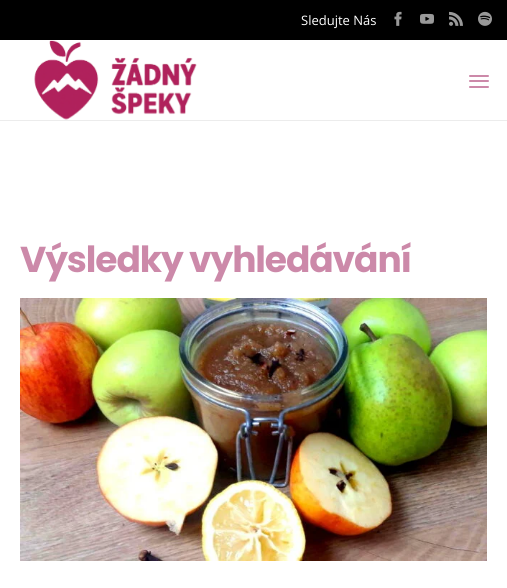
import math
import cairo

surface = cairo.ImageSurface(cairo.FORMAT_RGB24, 507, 588)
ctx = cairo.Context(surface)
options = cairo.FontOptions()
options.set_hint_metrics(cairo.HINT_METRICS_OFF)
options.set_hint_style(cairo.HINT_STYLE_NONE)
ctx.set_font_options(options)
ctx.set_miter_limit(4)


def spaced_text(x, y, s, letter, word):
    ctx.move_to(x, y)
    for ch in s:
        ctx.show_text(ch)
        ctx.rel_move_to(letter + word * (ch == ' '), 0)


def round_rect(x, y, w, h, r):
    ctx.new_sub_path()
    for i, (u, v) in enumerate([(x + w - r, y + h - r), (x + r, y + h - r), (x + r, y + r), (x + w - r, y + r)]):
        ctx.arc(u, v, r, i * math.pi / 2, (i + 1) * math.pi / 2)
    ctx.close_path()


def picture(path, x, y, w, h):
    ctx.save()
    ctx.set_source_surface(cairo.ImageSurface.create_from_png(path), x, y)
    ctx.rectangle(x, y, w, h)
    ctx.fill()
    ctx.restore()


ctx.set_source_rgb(1, 1, 1)
ctx.paint()
ctx.set_source_rgb(0, 0, 0)
ctx.rectangle(0, 0, 507, 40)
ctx.fill()
ctx.select_font_face("Open Sans")
ctx.set_font_size(13)
ctx.set_source_rgb(1, 1, 1)
ctx.move_to(301, 25)
ctx.show_text("Sledujte Nás")
picture("img1.png", 394, 11, 8, 15)
picture("img2.png", 420, 13, 14, 11)
picture("img3.png", 449, 11, 14, 15)
picture("img4.png", 478, 11, 14, 15)
ctx.set_source_rgb(0.922, 0.922, 0.922)
ctx.rectangle(0, 120, 507, 1)
ctx.fill()
picture("img5.png", 34, 40, 163, 80)
ctx.set_source_rgb(0.8, 0.537, 0.663)
round_rect(469, 75, 20, 2, 1)
ctx.fill()
round_rect(469, 80, 20, 2, 1)
ctx.fill()
round_rect(469, 86, 20, 2, 1)
ctx.fill()
ctx.select_font_face("Poppins", cairo.FONT_SLANT_NORMAL, cairo.FONT_WEIGHT_BOLD)
ctx.set_font_size(36)
spaced_text(20, 272, "Výsledky vyhledávání", -1.1, 0)
picture("img6.png", 20, 298, 467, 263)
surface.write_to_png("page.png")
